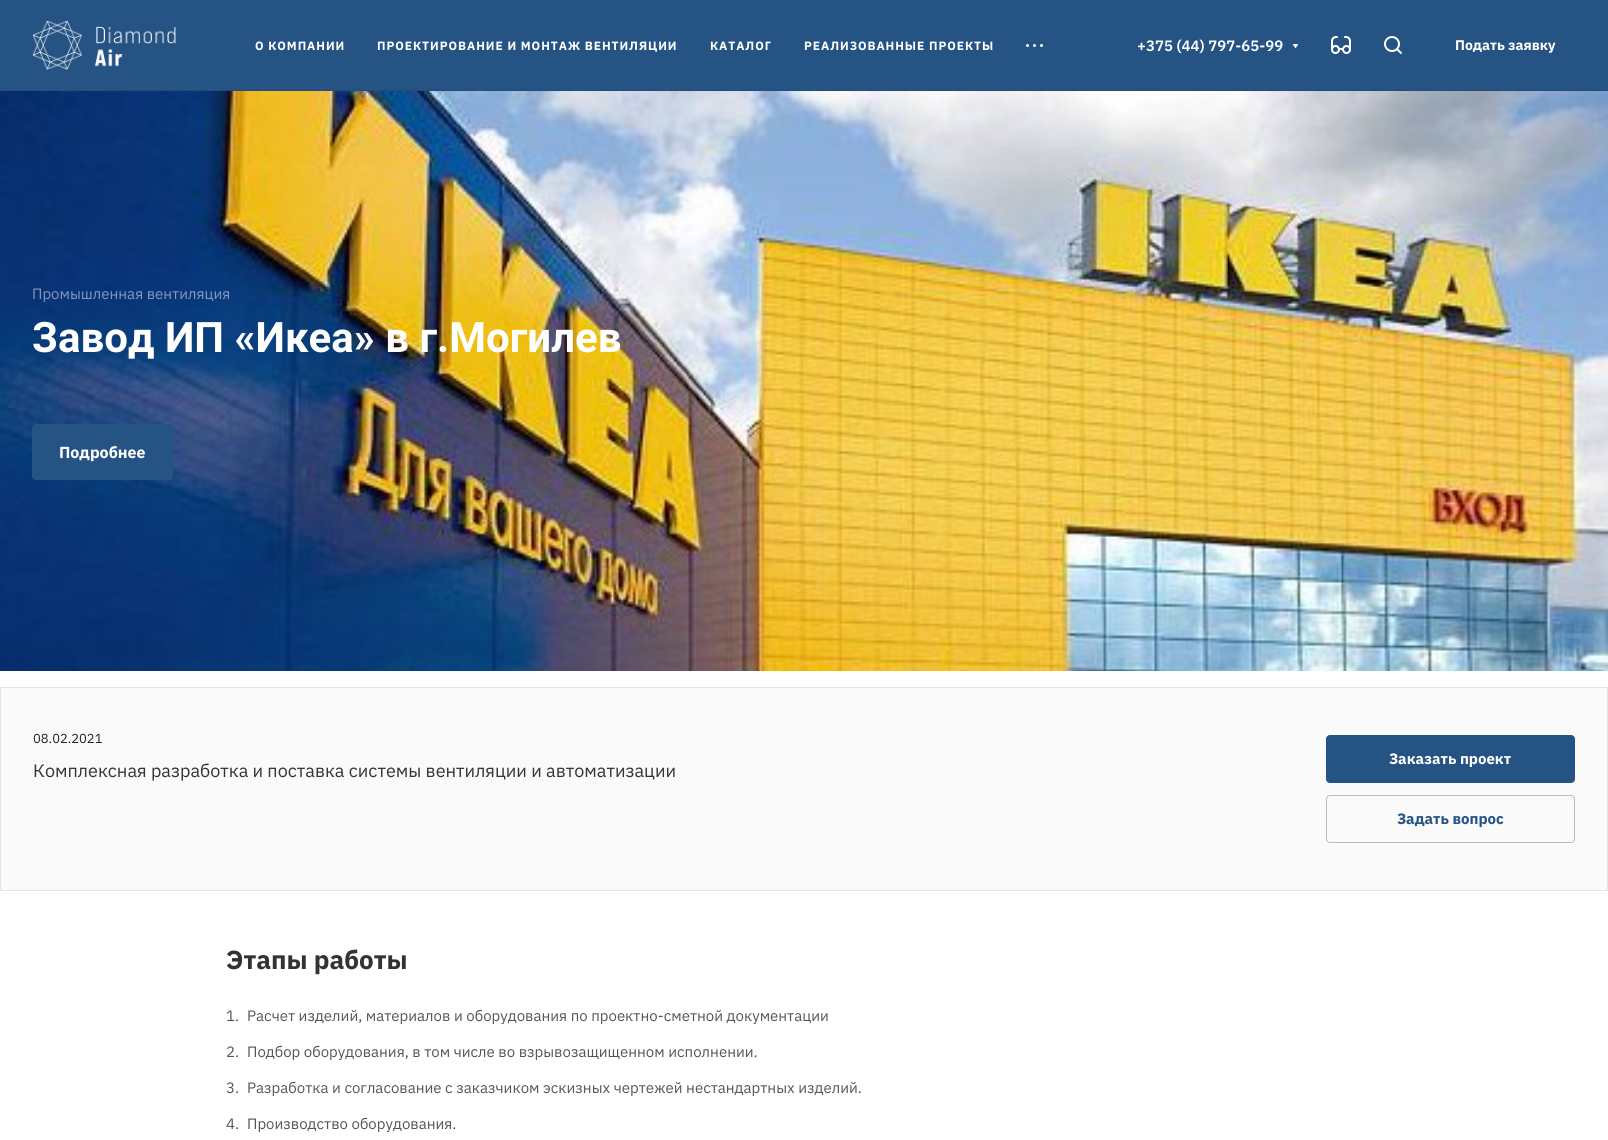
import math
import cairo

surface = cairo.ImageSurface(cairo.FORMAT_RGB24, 1608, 1140)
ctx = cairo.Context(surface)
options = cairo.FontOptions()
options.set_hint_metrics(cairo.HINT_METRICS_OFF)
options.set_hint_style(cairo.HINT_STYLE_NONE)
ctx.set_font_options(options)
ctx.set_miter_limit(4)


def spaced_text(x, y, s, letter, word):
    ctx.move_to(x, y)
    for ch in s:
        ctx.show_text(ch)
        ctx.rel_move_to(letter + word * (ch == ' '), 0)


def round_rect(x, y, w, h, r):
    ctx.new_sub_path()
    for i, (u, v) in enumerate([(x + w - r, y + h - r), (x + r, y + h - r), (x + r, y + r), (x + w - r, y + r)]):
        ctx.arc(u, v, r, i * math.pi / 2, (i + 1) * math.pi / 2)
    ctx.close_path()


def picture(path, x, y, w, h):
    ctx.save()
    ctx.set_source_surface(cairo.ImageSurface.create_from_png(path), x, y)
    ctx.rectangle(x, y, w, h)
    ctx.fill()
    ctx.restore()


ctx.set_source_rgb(1, 1, 1)
ctx.paint()
ctx.set_source_rgb(0.145, 0.325, 0.518)
ctx.rectangle(0, 0, 1608, 90)
ctx.fill()
ctx.set_source_rgb(0.133, 0.302, 0.482)
ctx.rectangle(0, 90, 1608, 1)
ctx.fill()
picture("img1.png", 32, 20, 145, 50)
ctx.select_font_face("IBM Plex Sans", cairo.FONT_SLANT_NORMAL, cairo.FONT_WEIGHT_BOLD)
ctx.set_font_size(12)
ctx.set_source_rgb(1, 1, 1)
spaced_text(255, 50, "O КОМПАНИИ", 0.95, 0)
spaced_text(377, 50, "ПРОЕКТИРОВАНИЕ И МОНТАЖ ВЕНТИЛЯЦИИ", 0.95, 0)
spaced_text(710, 50, "КАТАЛОГ", 0.95, 0)
spaced_text(804, 50, "РЕАЛИЗОВАННЫЕ ПРОЕКТЫ", 0.95, 0)
picture("img2.png", 1026, 44, 17, 3)
ctx.select_font_face("IBM Plex Sans SemiBold")
ctx.set_font_size(15)
ctx.move_to(1137, 51)
ctx.show_text("+375 (44) 797-65-99")
picture("img3.png", 1293, 44, 5, 4)
picture("img4.png", 1331, 36, 20, 18)
picture("img5.png", 1384, 36, 18, 18)
ctx.select_font_face("IBM Plex Sans", cairo.FONT_SLANT_NORMAL, cairo.FONT_WEIGHT_BOLD)
ctx.set_font_size(14)
ctx.move_to(1455, 50)
ctx.show_text("Подать заявку")
picture("img6.png", 0, 91, 1608, 580)
ctx.select_font_face("IBM Plex Sans")
ctx.set_font_size(15)
ctx.set_source_rgb(0.518, 0.604, 0.737)
ctx.move_to(32, 299)
ctx.show_text("Промышленная вентиляция")
ctx.select_font_face("Roboto", cairo.FONT_SLANT_NORMAL, cairo.FONT_WEIGHT_BOLD)
ctx.set_font_size(42)
ctx.set_source_rgb(1, 1, 1)
ctx.move_to(32, 352)
ctx.show_text("Завод ИП «Икеа» в г.Могилев")
ctx.set_source_rgb(0.145, 0.325, 0.518)
round_rect(32.5, 424.5, 140, 55, 3.5)
ctx.fill_preserve()
ctx.set_line_width(1)
ctx.stroke()
ctx.select_font_face("IBM Plex Sans", cairo.FONT_SLANT_NORMAL, cairo.FONT_WEIGHT_BOLD)
ctx.set_font_size(16)
ctx.set_source_rgb(1, 1, 1)
ctx.move_to(59, 458)
ctx.show_text("Подробнее")
ctx.set_source_rgb(0.98, 0.98, 0.98)
ctx.rectangle(0.5, 687.5, 1607, 203)
ctx.fill_preserve()
ctx.set_source_rgb(0.898, 0.898, 0.898)
ctx.stroke()
ctx.select_font_face("IBM Plex Sans")
ctx.set_font_size(13)
ctx.set_source_rgb(0.133, 0.133, 0.133)
ctx.move_to(33, 743)
ctx.show_text("08.02.2021")
ctx.set_font_size(18)
ctx.set_source_rgb(0.2, 0.2, 0.2)
ctx.move_to(33, 777)
ctx.show_text("Комплексная разработка и поставка системы вентиляции и автоматизации")
ctx.set_source_rgb(0.145, 0.325, 0.518)
round_rect(1326.5, 735.5, 248, 47, 3.5)
ctx.fill_preserve()
ctx.stroke()
ctx.select_font_face("IBM Plex Sans", cairo.FONT_SLANT_NORMAL, cairo.FONT_WEIGHT_BOLD)
ctx.set_font_size(15)
ctx.set_source_rgb(1, 1, 1)
ctx.move_to(1389, 764)
ctx.show_text("Заказать проект")
round_rect(1326.5, 795.5, 248, 47, 3.5)
ctx.set_source_rgb(0.686, 0.753, 0.816)
ctx.stroke()
ctx.set_source_rgb(0.145, 0.325, 0.518)
ctx.move_to(1397, 824)
ctx.show_text("Задать вопрос")
ctx.set_font_size(26)
ctx.set_source_rgb(0.2, 0.2, 0.2)
ctx.move_to(226, 969)
ctx.show_text("Этапы работы")
ctx.select_font_face("IBM Plex Sans")
ctx.set_font_size(15)
ctx.set_source_rgb(0.333, 0.333, 0.333)
ctx.move_to(226, 1021)
ctx.show_text("1.")
ctx.move_to(247, 1021)
ctx.show_text("Расчет изделий, материалов и оборудования по проектно-сметной документации")
ctx.move_to(226, 1057)
ctx.show_text("2.")
ctx.move_to(247, 1057)
ctx.show_text("Подбор оборудования, в том числе во взрывозащищенном исполнении.")
ctx.move_to(226, 1093)
ctx.show_text("3.")
ctx.move_to(247, 1093)
ctx.show_text("Разработка и согласование с заказчиком эскизных чертежей нестандартных изделий.")
ctx.move_to(226, 1129)
ctx.show_text("4.")
ctx.move_to(247, 1129)
ctx.show_text("Производство оборудования.")
surface.write_to_png("page.png")
